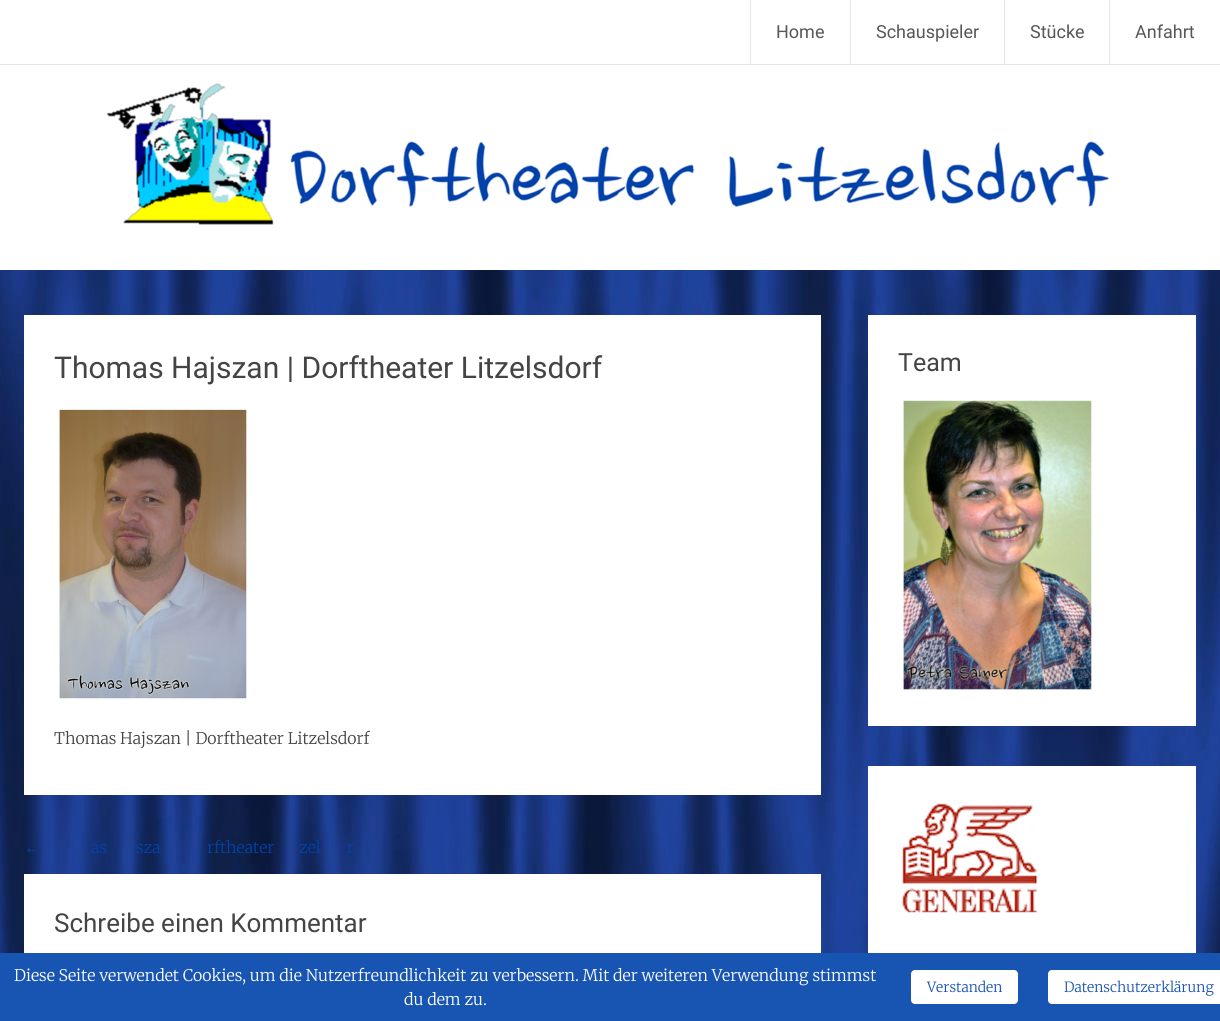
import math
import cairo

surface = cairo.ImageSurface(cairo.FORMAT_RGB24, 1220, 1021)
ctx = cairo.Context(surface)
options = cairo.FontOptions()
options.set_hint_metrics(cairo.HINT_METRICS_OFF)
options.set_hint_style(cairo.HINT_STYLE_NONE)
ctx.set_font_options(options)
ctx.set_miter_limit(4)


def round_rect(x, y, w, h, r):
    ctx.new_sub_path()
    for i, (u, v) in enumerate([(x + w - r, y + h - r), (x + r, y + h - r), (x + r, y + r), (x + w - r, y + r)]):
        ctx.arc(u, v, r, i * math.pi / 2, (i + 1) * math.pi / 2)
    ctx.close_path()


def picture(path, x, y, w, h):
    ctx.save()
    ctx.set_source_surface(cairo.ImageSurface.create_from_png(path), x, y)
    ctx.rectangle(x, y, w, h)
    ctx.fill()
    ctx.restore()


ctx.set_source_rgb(1, 1, 1)
ctx.paint()
ctx.set_source_rgb(0.894, 0.906, 0.914)
ctx.rectangle(0, 64, 1220, 1)
ctx.fill()
ctx.rectangle(750, 0, 1, 64)
ctx.fill()
ctx.select_font_face("Roboto")
ctx.set_font_size(18)
ctx.set_source_rgb(0.341, 0.341, 0.341)
ctx.move_to(776, 38)
ctx.show_text("Home")
ctx.set_source_rgb(0.894, 0.906, 0.914)
ctx.rectangle(850, 0, 1, 64)
ctx.fill()
ctx.set_source_rgb(0.341, 0.341, 0.341)
ctx.move_to(876, 38)
ctx.show_text("Schauspieler")
ctx.set_source_rgb(0.894, 0.906, 0.914)
ctx.rectangle(1004, 0, 1, 64)
ctx.fill()
ctx.set_source_rgb(0.341, 0.341, 0.341)
ctx.move_to(1030, 38)
ctx.show_text("Stücke")
ctx.set_source_rgb(0.894, 0.906, 0.914)
ctx.rectangle(1109, 0, 1, 64)
ctx.fill()
ctx.set_source_rgb(0.341, 0.341, 0.341)
ctx.move_to(1135, 38)
ctx.show_text("Anfahrt")
picture("img1.png", 0, 270, 1220, 683)
ctx.set_source_rgb(1, 1, 1)
ctx.rectangle(24, 315, 797, 480)
ctx.fill()
ctx.set_font_size(30)
ctx.set_source_rgb(0.267, 0.267, 0.267)
ctx.move_to(54, 378)
ctx.show_text("Thomas Hajszan | Dorftheater Litzelsdorf")
picture("img2.png", 59, 409, 188, 290)
ctx.select_font_face("Merriweather Light")
ctx.set_font_size(16)
ctx.move_to(54, 744)
ctx.show_text("Thomas Hajszan | Dorftheater Litzelsdorf")
ctx.select_font_face("Liberation Serif")
ctx.set_source_rgb(0, 0.259, 0.667)
ctx.move_to(24, 853)
ctx.show_text("←")
ctx.select_font_face("Merriweather Light")
ctx.move_to(91, 853)
ctx.show_text("as")
ctx.move_to(136, 853)
ctx.show_text("sza")
ctx.move_to(207, 853)
ctx.show_text("rftheater")
ctx.move_to(299, 853)
ctx.show_text("zel")
ctx.move_to(347, 853)
ctx.show_text("r")
ctx.set_source_rgb(1, 1, 1)
ctx.rectangle(24, 874, 797, 79)
ctx.fill()
ctx.select_font_face("Roboto")
ctx.set_font_size(26)
ctx.set_source_rgb(0.267, 0.267, 0.267)
ctx.move_to(54, 932)
ctx.show_text("Schreibe einen Kommentar")
ctx.set_source_rgb(1, 1, 1)
ctx.rectangle(868, 315, 328, 411)
ctx.fill()
ctx.set_font_size(25)
ctx.set_source_rgb(0.267, 0.267, 0.267)
ctx.move_to(898, 371)
ctx.show_text("Team")
picture("img3.png", 903, 400, 189, 290)
ctx.set_source_rgb(1, 1, 1)
ctx.rectangle(868, 766, 328, 187)
ctx.fill()
picture("img4.png", 902, 803, 136, 110)
picture("img5.png", 107, 83, 1003, 142)
ctx.set_source_rgb(0.094, 0.329, 0.698)
ctx.rectangle(0, 953, 1220, 68)
ctx.fill()
ctx.select_font_face("Merriweather Light")
ctx.set_font_size(16)
ctx.set_source_rgb(1, 1, 1)
ctx.move_to(14, 981)
ctx.show_text("Diese Seite verwendet Cookies, um die Nutzerfreundlichkeit zu verbessern. Mit der weiteren Verwendung stimmst")
ctx.move_to(404, 1005)
ctx.show_text("du dem zu.")
round_rect(911, 970, 107, 34, 4)
ctx.fill()
ctx.set_font_size(14)
ctx.set_source_rgb(0.094, 0.329, 0.698)
ctx.move_to(927, 992)
ctx.show_text("Verstanden")
ctx.set_source_rgb(1, 1, 1)
round_rect(1048, 970, 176, 34, 4)
ctx.fill()
ctx.set_source_rgb(0.094, 0.329, 0.698)
ctx.move_to(1064, 992)
ctx.show_text("Datenschutzerklärung")
surface.write_to_png("page.png")
